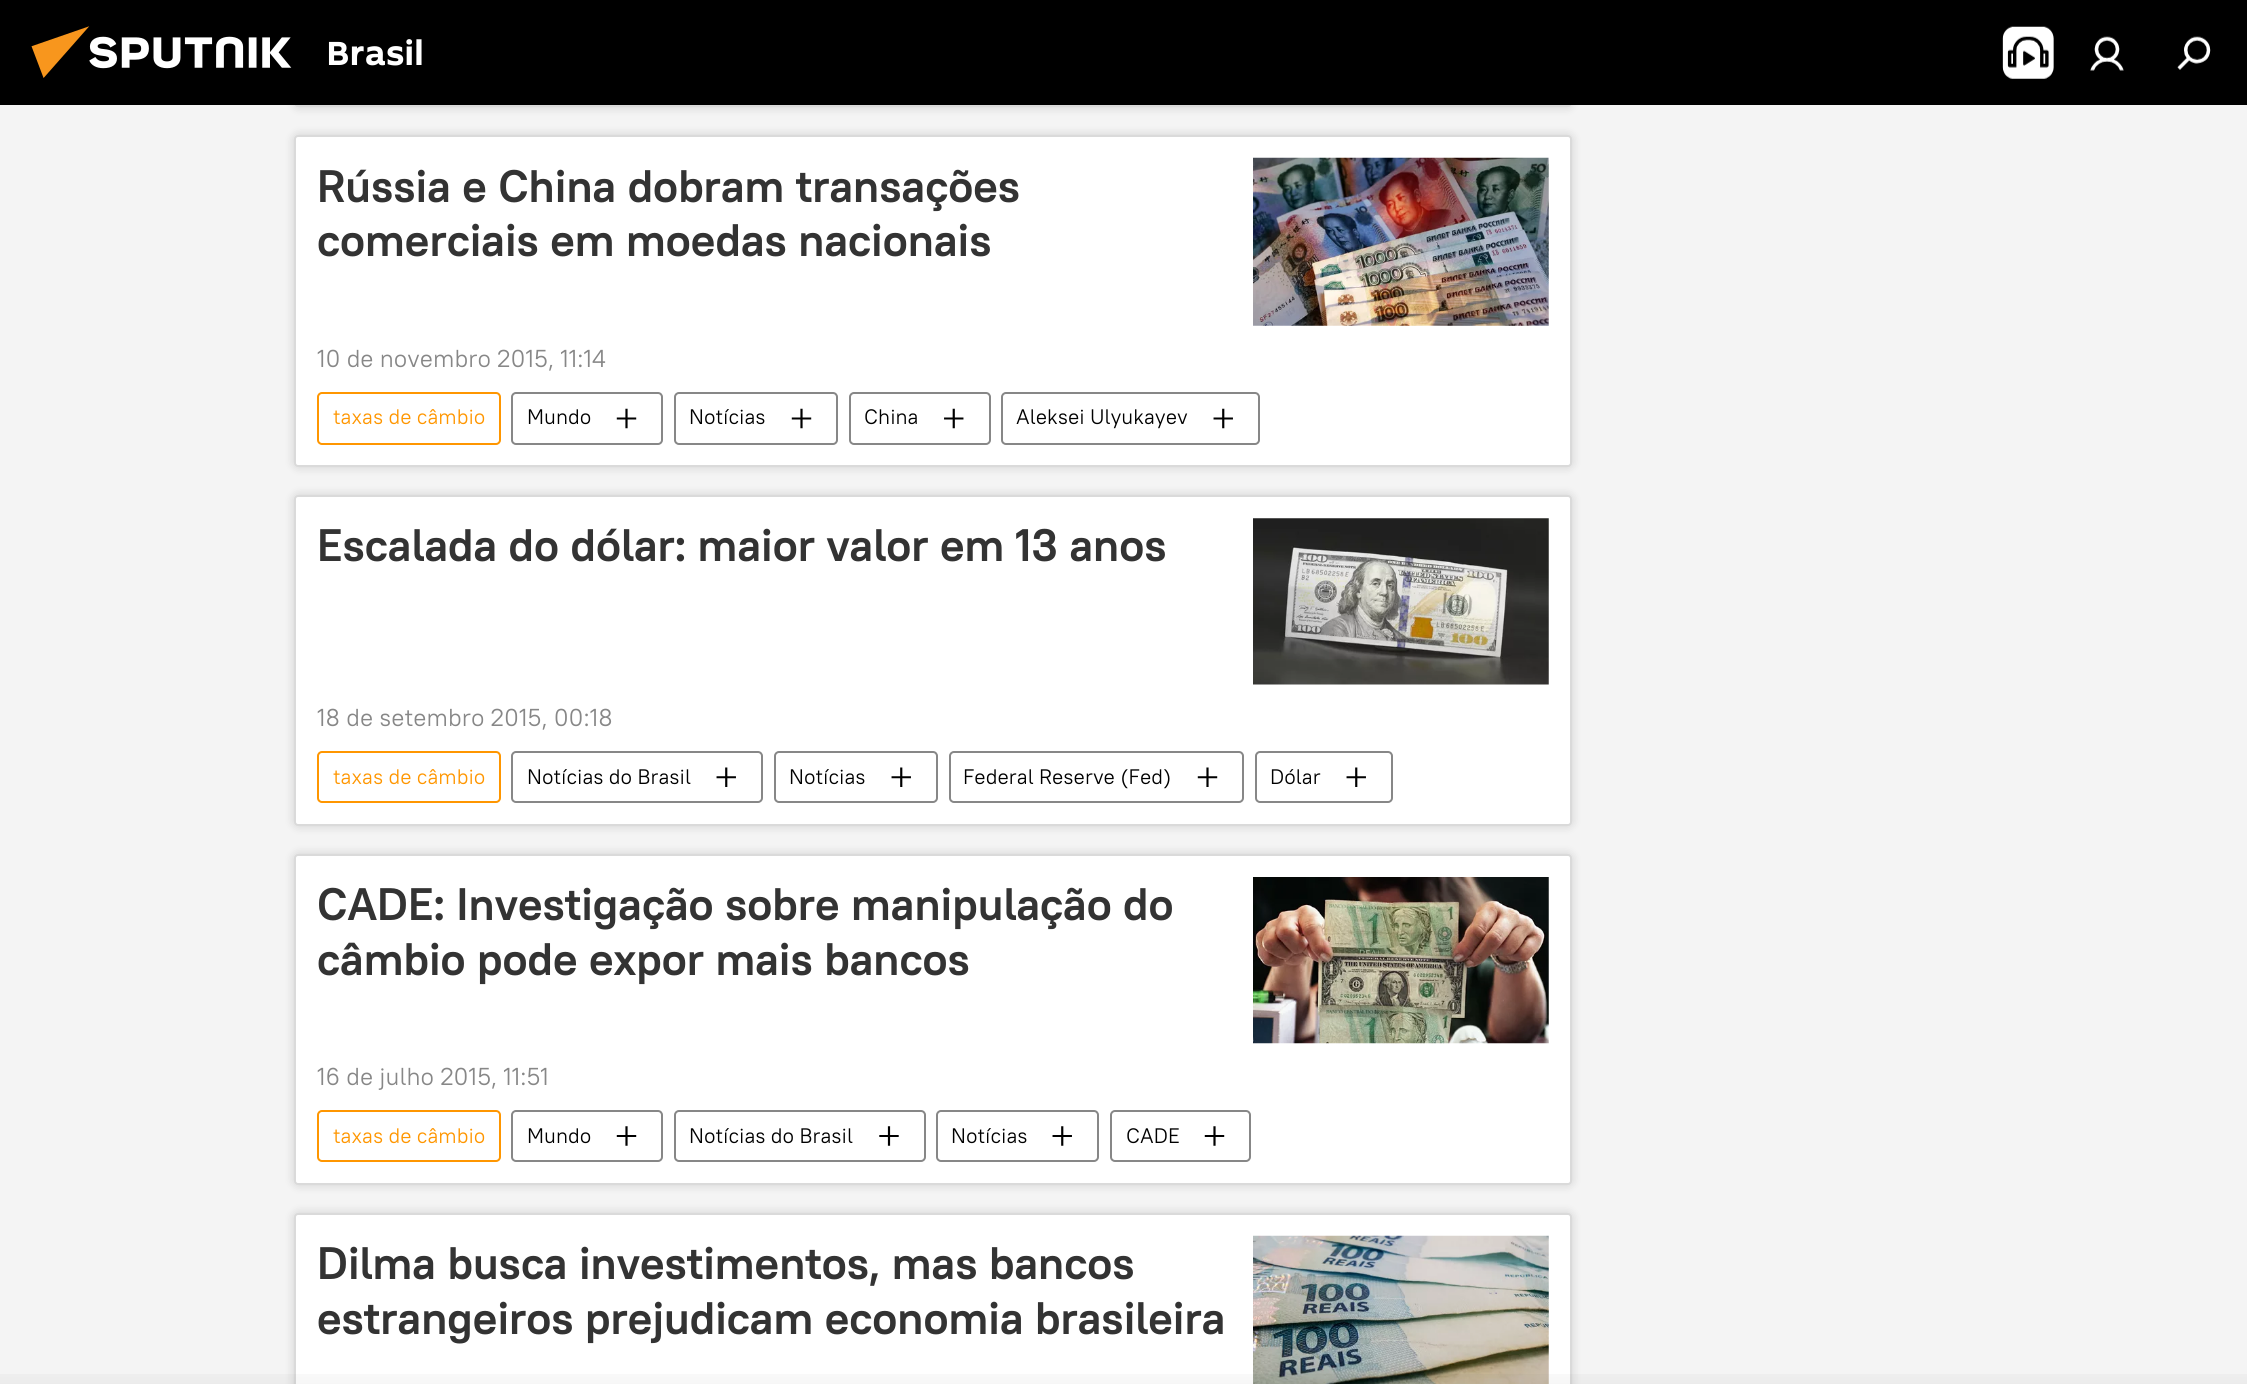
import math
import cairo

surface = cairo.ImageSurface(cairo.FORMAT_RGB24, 2247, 1384)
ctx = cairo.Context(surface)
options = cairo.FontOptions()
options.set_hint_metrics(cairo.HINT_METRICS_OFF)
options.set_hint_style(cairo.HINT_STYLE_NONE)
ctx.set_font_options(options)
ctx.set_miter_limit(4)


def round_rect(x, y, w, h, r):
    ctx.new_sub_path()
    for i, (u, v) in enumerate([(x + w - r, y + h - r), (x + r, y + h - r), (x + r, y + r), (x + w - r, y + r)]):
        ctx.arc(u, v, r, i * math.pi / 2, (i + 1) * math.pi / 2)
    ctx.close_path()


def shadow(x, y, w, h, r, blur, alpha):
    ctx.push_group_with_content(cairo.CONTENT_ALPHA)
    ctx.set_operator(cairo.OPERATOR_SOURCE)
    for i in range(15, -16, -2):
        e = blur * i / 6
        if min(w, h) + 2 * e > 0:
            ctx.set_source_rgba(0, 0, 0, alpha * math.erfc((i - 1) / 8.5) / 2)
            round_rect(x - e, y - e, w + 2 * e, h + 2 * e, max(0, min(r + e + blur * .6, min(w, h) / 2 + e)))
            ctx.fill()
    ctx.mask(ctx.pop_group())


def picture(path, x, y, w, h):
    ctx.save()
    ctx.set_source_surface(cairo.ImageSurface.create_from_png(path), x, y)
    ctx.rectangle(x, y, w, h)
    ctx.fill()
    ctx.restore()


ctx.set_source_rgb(0.957, 0.957, 0.957)
ctx.paint()
ctx.set_source_rgb(0, 0, 0)
shadow(294, -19, 1278, 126, 4, 5, 0.15)
round_rect(295, -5, 1276, 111, 3)
ctx.set_source_rgb(0.855, 0.855, 0.855)
ctx.stroke()
ctx.set_source_rgb(0, 0, 0)
ctx.rectangle(0, 0, 2247, 105)
ctx.fill()
picture("img1.png", 31, 26, 261, 52)
ctx.select_font_face("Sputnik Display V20", cairo.FONT_SLANT_NORMAL, cairo.FONT_WEIGHT_BOLD)
ctx.set_font_size(33)
ctx.set_source_rgb(1, 1, 1)
ctx.move_to(326, 65)
ctx.show_text("Brasil")
picture("img2.png", 2002, 26, 52, 53)
picture("img3.png", 2090, 36, 34, 35)
picture("img4.png", 2177, 36, 34, 34)
ctx.set_source_rgb(0, 0, 0)
shadow(294, 135, 1278, 332, 4, 5, 0.15)
ctx.set_source_rgb(1, 1, 1)
round_rect(295, 136, 1276, 330, 3)
ctx.fill_preserve()
ctx.set_source_rgb(0.855, 0.855, 0.855)
ctx.stroke()
ctx.select_font_face("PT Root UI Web", cairo.FONT_SLANT_NORMAL, cairo.FONT_WEIGHT_BOLD)
ctx.set_font_size(45.5)
ctx.set_source_rgb(0.2, 0.2, 0.2)
ctx.move_to(317, 202)
ctx.show_text("Rússia e China dobram transações")
ctx.move_to(317, 256)
ctx.show_text("comerciais em moedas nacionais")
picture("img5.png", 1253, 157, 296, 169)
ctx.select_font_face("PT Root UI Web")
ctx.set_font_size(24.5)
ctx.set_source_rgb(0.529, 0.529, 0.529)
ctx.move_to(317, 367)
ctx.show_text("10 de novembro 2015, 11:14")
round_rect(318, 393, 182, 51, 4)
ctx.set_source_rgb(1, 0.588, 0)
ctx.stroke()
ctx.set_font_size(21)
ctx.move_to(333, 424)
ctx.show_text("taxas de câmbio")
round_rect(512, 393, 150, 51, 4)
ctx.set_source_rgb(0.529, 0.529, 0.529)
ctx.stroke()
ctx.set_source_rgb(0, 0, 0)
ctx.move_to(527, 424)
ctx.show_text("Mundo")
picture("img6.png", 616, 408, 21, 21)
round_rect(675, 393, 162, 51, 4)
ctx.set_source_rgb(0.529, 0.529, 0.529)
ctx.stroke()
ctx.set_source_rgb(0, 0, 0)
ctx.move_to(689, 424)
ctx.show_text("Notícias")
picture("img6.png", 791, 408, 21, 21)
round_rect(850, 393, 140, 51, 4)
ctx.set_source_rgb(0.529, 0.529, 0.529)
ctx.stroke()
ctx.set_source_rgb(0, 0, 0)
ctx.move_to(864, 424)
ctx.show_text("China")
picture("img7.png", 944, 408, 20, 21)
round_rect(1002, 393, 257, 51, 4)
ctx.set_source_rgb(0.529, 0.529, 0.529)
ctx.stroke()
ctx.set_source_rgb(0, 0, 0)
ctx.move_to(1016, 424)
ctx.show_text("Aleksei Ulyukayev")
picture("img8.png", 1213, 408, 20, 21)
ctx.set_source_rgb(0, 0, 0)
shadow(294, 495, 1278, 331, 4, 5, 0.15)
ctx.set_source_rgb(1, 1, 1)
round_rect(295, 496, 1276, 329, 3)
ctx.fill_preserve()
ctx.set_source_rgb(0.855, 0.855, 0.855)
ctx.stroke()
ctx.select_font_face("PT Root UI Web", cairo.FONT_SLANT_NORMAL, cairo.FONT_WEIGHT_BOLD)
ctx.set_font_size(45.5)
ctx.set_source_rgb(0.2, 0.2, 0.2)
ctx.move_to(317, 561)
ctx.show_text("Escalada do dólar: maior valor em 13 anos")
picture("img9.png", 1253, 518, 296, 167)
ctx.select_font_face("PT Root UI Web")
ctx.set_font_size(24.5)
ctx.set_source_rgb(0.529, 0.529, 0.529)
ctx.move_to(317, 726)
ctx.show_text("18 de setembro 2015, 00:18")
round_rect(318, 752, 182, 50, 4)
ctx.set_source_rgb(1, 0.588, 0)
ctx.stroke()
ctx.set_font_size(21)
ctx.move_to(333, 784)
ctx.show_text("taxas de câmbio")
round_rect(512, 752, 250, 50, 4)
ctx.set_source_rgb(0.529, 0.529, 0.529)
ctx.stroke()
ctx.set_source_rgb(0, 0, 0)
ctx.move_to(527, 784)
ctx.show_text("Notícias do Brasil")
picture("img10.png", 716, 767, 20, 20)
round_rect(775, 752, 162, 50, 4)
ctx.set_source_rgb(0.529, 0.529, 0.529)
ctx.stroke()
ctx.set_source_rgb(0, 0, 0)
ctx.move_to(789, 784)
ctx.show_text("Notícias")
picture("img10.png", 891, 767, 20, 20)
round_rect(950, 752, 293, 50, 4)
ctx.set_source_rgb(0.529, 0.529, 0.529)
ctx.stroke()
ctx.set_source_rgb(0, 0, 0)
ctx.move_to(963, 784)
ctx.show_text("Federal Reserve (Fed)")
picture("img11.png", 1197, 767, 21, 20)
round_rect(1256, 752, 136, 50, 4)
ctx.set_source_rgb(0.529, 0.529, 0.529)
ctx.stroke()
ctx.set_source_rgb(0, 0, 0)
ctx.move_to(1270, 784)
ctx.show_text("Dólar")
picture("img10.png", 1346, 767, 20, 20)
ctx.set_source_rgb(0, 0, 0)
shadow(294, 854, 1278, 331, 4, 5, 0.15)
ctx.set_source_rgb(1, 1, 1)
round_rect(295, 855, 1276, 329, 3)
ctx.fill_preserve()
ctx.set_source_rgb(0.855, 0.855, 0.855)
ctx.stroke()
ctx.select_font_face("PT Root UI Web", cairo.FONT_SLANT_NORMAL, cairo.FONT_WEIGHT_BOLD)
ctx.set_font_size(45.5)
ctx.set_source_rgb(0.2, 0.2, 0.2)
ctx.move_to(317, 920)
ctx.show_text("CADE: Investigação sobre manipulação do")
ctx.move_to(317, 975)
ctx.show_text("câmbio pode expor mais bancos")
picture("img12.png", 1253, 877, 296, 167)
ctx.select_font_face("PT Root UI Web")
ctx.set_font_size(24.5)
ctx.set_source_rgb(0.529, 0.529, 0.529)
ctx.move_to(317, 1085)
ctx.show_text("16 de julho 2015, 11:51")
round_rect(318, 1111, 182, 50, 4)
ctx.set_source_rgb(1, 0.588, 0)
ctx.stroke()
ctx.set_font_size(21)
ctx.move_to(333, 1143)
ctx.show_text("taxas de câmbio")
round_rect(512, 1111, 150, 50, 4)
ctx.set_source_rgb(0.529, 0.529, 0.529)
ctx.stroke()
ctx.set_source_rgb(0, 0, 0)
ctx.move_to(527, 1143)
ctx.show_text("Mundo")
picture("img13.png", 616, 1126, 21, 20)
round_rect(675, 1111, 250, 50, 4)
ctx.set_source_rgb(0.529, 0.529, 0.529)
ctx.stroke()
ctx.set_source_rgb(0, 0, 0)
ctx.move_to(689, 1143)
ctx.show_text("Notícias do Brasil")
picture("img14.png", 879, 1126, 20, 20)
round_rect(937, 1111, 161, 50, 4)
ctx.set_source_rgb(0.529, 0.529, 0.529)
ctx.stroke()
ctx.set_source_rgb(0, 0, 0)
ctx.move_to(951, 1143)
ctx.show_text("Notícias")
picture("img15.png", 1052, 1126, 20, 20)
round_rect(1111, 1111, 139, 50, 4)
ctx.set_source_rgb(0.529, 0.529, 0.529)
ctx.stroke()
ctx.set_source_rgb(0, 0, 0)
ctx.move_to(1126, 1143)
ctx.show_text("CADE")
picture("img13.png", 1204, 1126, 21, 20)
ctx.set_source_rgb(0, 0, 0)
shadow(294, 1213, 1278, 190, 4, 5, 0.15)
ctx.set_source_rgb(1, 1, 1)
round_rect(295, 1214, 1276, 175, 3)
ctx.fill_preserve()
ctx.set_source_rgb(0.855, 0.855, 0.855)
ctx.stroke()
ctx.select_font_face("PT Root UI Web", cairo.FONT_SLANT_NORMAL, cairo.FONT_WEIGHT_BOLD)
ctx.set_font_size(45.5)
ctx.set_source_rgb(0.2, 0.2, 0.2)
ctx.move_to(317, 1279)
ctx.show_text("Dilma busca investimentos, mas bancos")
ctx.move_to(317, 1334)
ctx.show_text("estrangeiros prejudicam economia brasileira")
picture("img16.png", 1253, 1235, 296, 149)
gradient = cairo.LinearGradient(1124, 1358, 1124, 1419)
gradient.add_color_stop_rgba(0, 0, 0, 0, 0)
gradient.add_color_stop_rgba(0.61, 0, 0, 0, 0.05)
gradient.add_color_stop_rgba(0.86, 0, 0, 0, 0.09)
gradient.add_color_stop_rgba(1, 0, 0, 0, 0.18)
ctx.set_source(gradient)
ctx.rectangle(0, 1374, 2247, 10)
ctx.fill()
surface.write_to_png("page.png")
